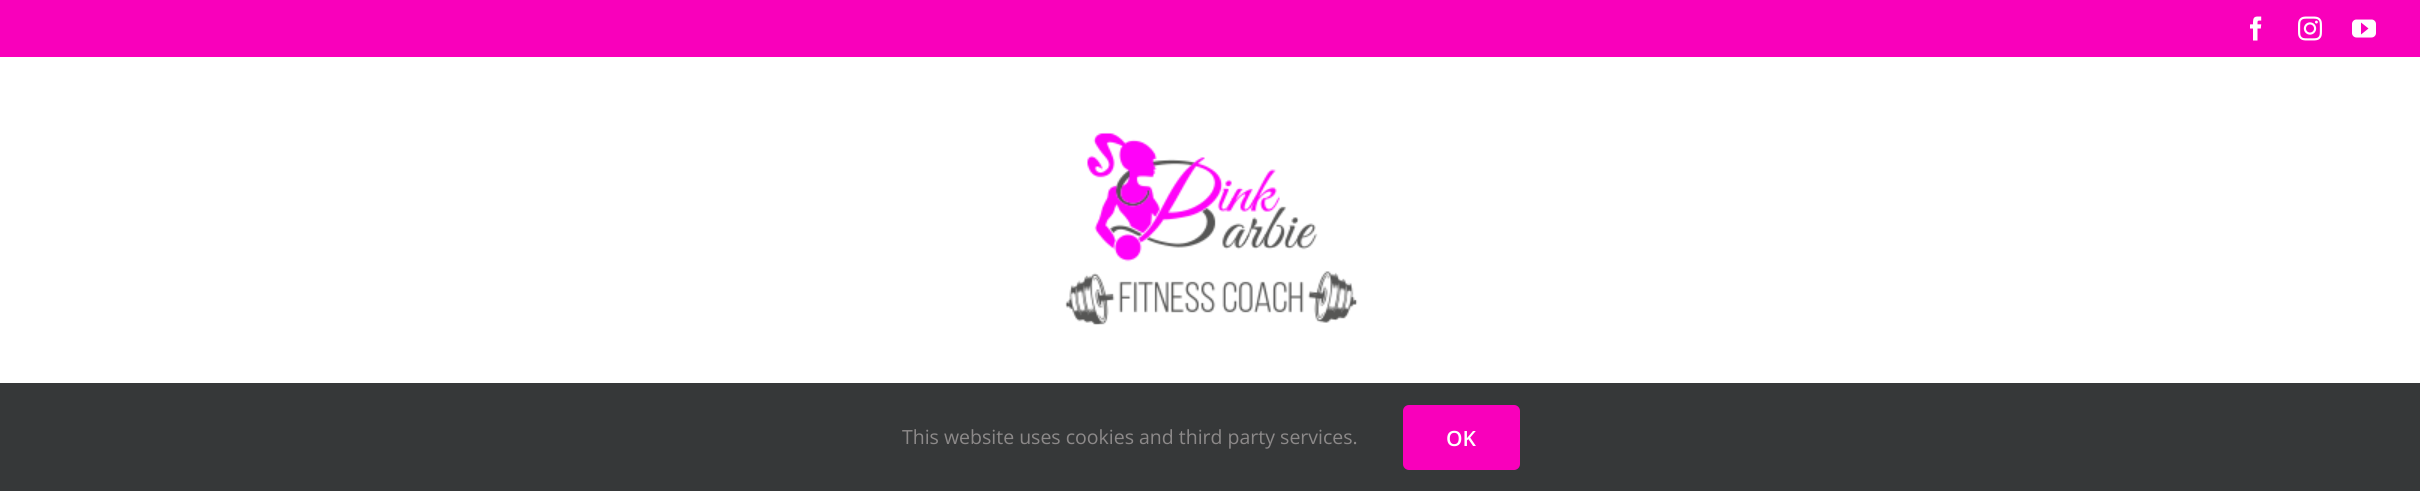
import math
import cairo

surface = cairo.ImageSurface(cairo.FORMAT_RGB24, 2420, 491)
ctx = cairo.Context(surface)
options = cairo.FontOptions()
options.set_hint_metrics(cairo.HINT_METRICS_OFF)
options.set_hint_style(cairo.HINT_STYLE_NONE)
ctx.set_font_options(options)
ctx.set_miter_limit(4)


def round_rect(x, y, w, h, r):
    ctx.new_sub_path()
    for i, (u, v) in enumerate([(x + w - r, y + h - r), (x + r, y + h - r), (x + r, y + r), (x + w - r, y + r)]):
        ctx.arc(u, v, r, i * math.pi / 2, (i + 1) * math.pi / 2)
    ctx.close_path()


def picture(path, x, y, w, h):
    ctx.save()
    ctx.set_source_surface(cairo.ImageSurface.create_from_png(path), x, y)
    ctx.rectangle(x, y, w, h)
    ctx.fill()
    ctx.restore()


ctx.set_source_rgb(0.976, 0, 0.733)
ctx.paint()
picture("img1.png", 2250, 16, 12, 25)
picture("img2.png", 2298, 16, 24, 25)
picture("img3.png", 2352, 19, 24, 19)
ctx.set_source_rgb(1, 1, 1)
ctx.rectangle(0, 57, 2420, 326)
ctx.fill()
picture("img4.png", 1065, 132, 293, 193)
ctx.set_source_rgb(0.212, 0.22, 0.224)
ctx.rectangle(0, 383, 2420, 108)
ctx.fill()
ctx.select_font_face("Open Sans")
ctx.set_font_size(19.5)
ctx.set_source_rgb(0.549, 0.537, 0.537)
ctx.move_to(902, 444)
ctx.show_text("This website uses cookies and third party services.")
ctx.set_source_rgb(0.976, 0, 0.733)
round_rect(1403, 405, 117, 65, 6)
ctx.fill()
ctx.select_font_face("Open Sans SemiBold")
ctx.set_font_size(21)
ctx.set_source_rgb(1, 1, 1)
ctx.move_to(1446, 446)
ctx.show_text("OK")
surface.write_to_png("page.png")
